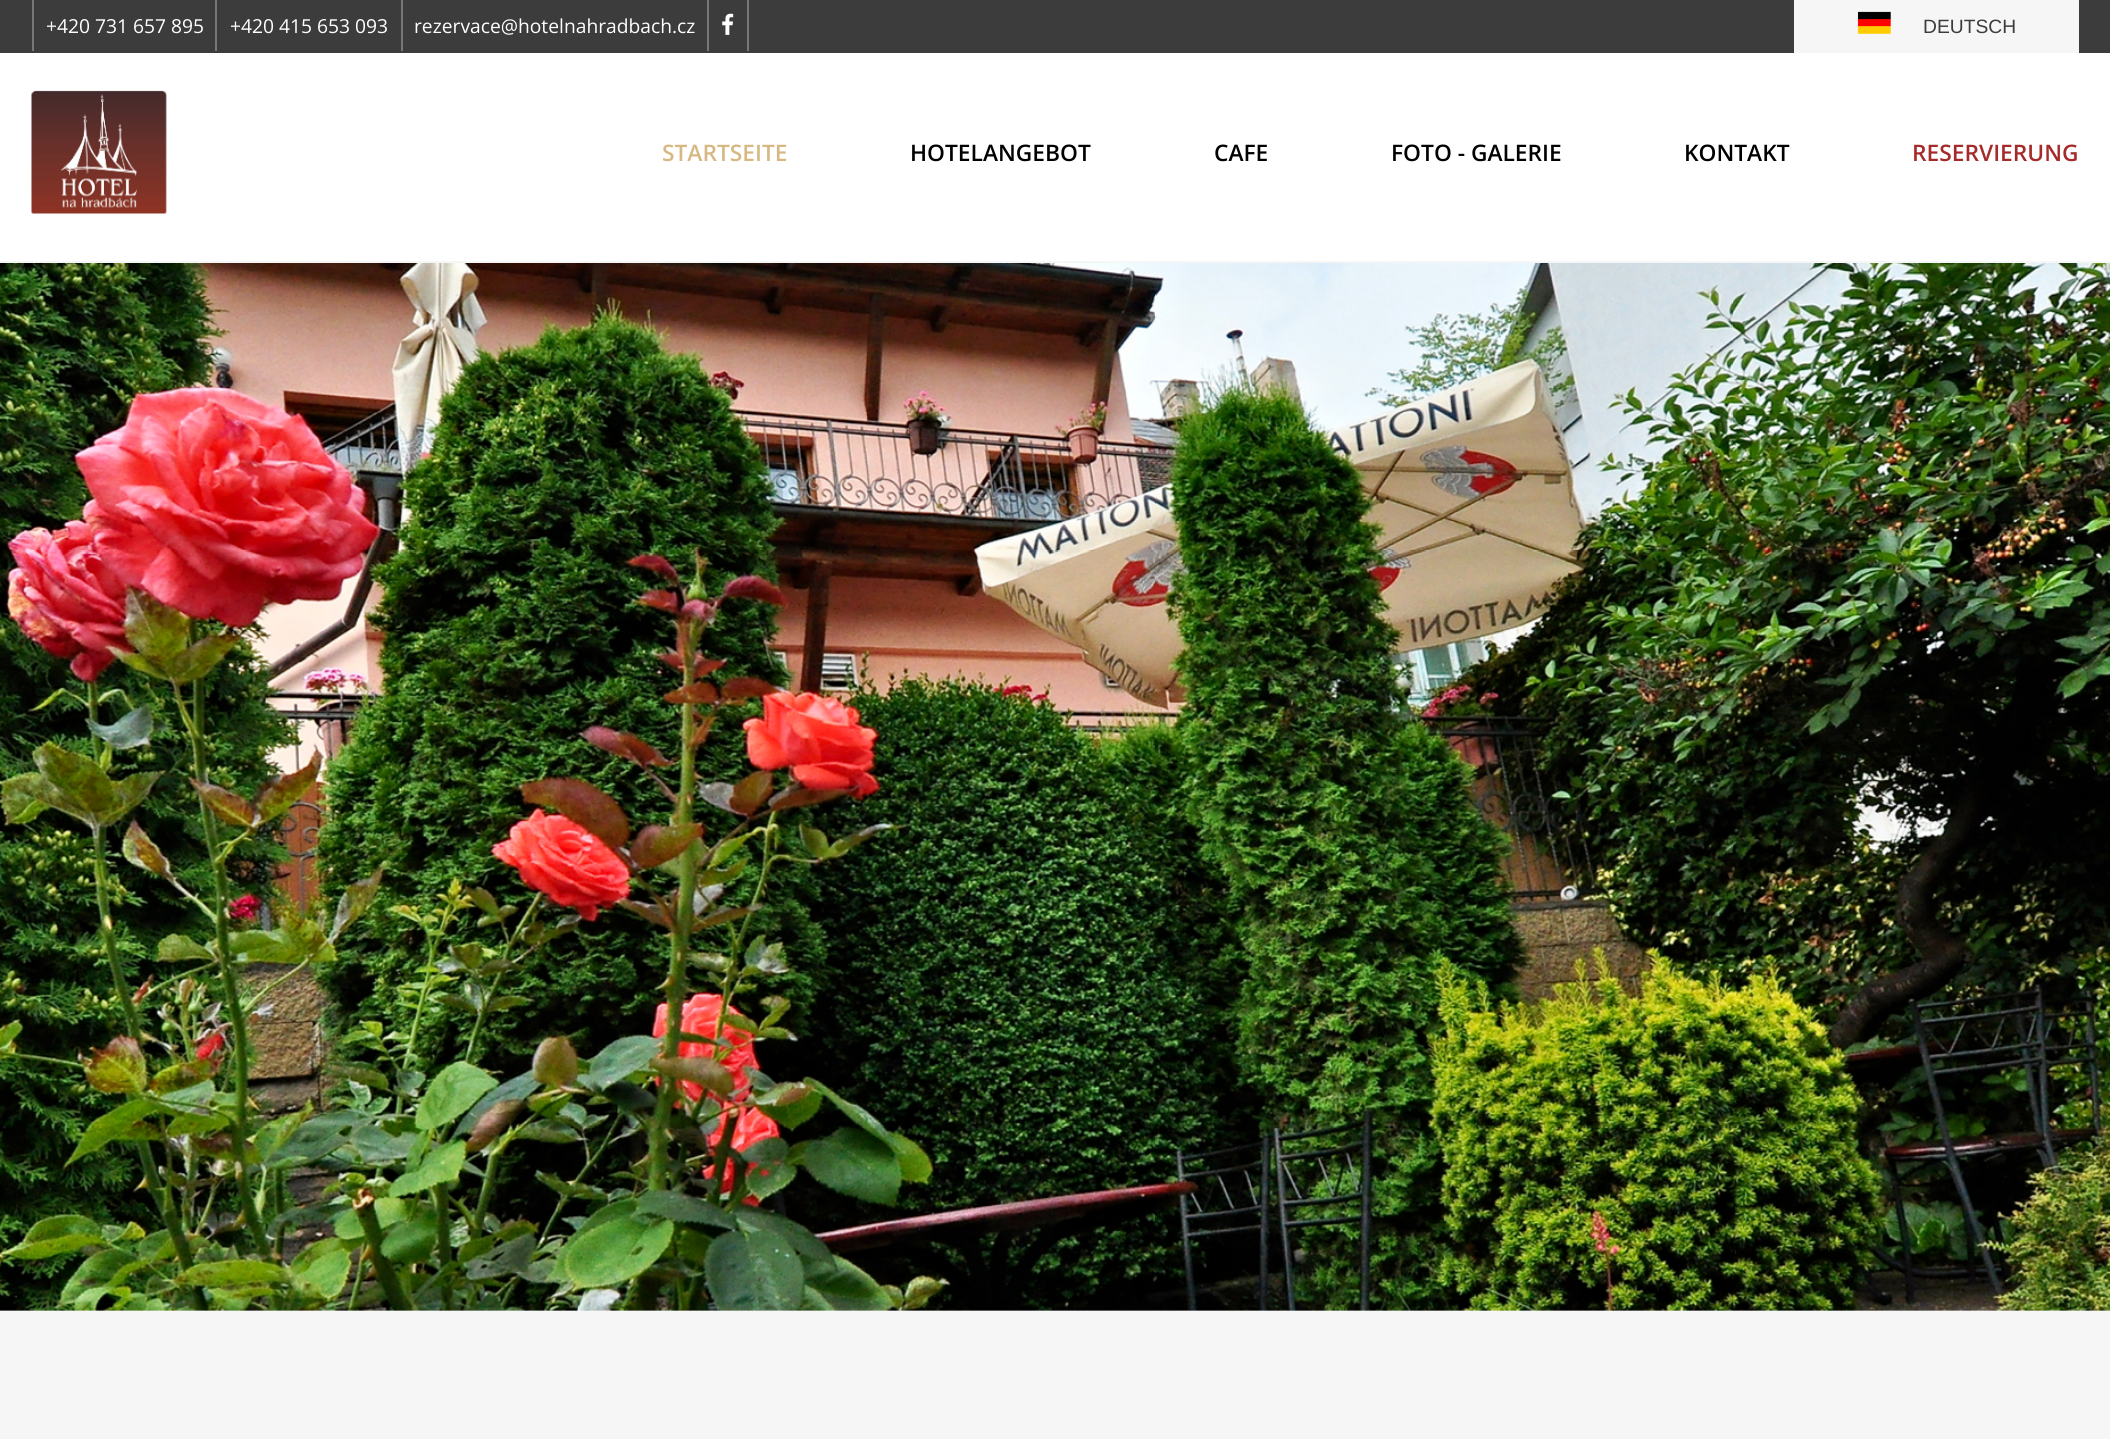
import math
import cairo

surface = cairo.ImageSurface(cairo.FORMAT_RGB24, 2110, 1439)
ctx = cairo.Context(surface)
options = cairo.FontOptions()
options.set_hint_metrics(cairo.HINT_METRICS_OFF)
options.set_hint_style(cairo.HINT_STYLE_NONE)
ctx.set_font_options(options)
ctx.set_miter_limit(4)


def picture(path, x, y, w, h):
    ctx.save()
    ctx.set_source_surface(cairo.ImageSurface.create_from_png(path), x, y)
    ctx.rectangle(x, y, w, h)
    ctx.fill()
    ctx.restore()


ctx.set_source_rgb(0.961, 0.961, 0.961)
ctx.paint()
ctx.set_source_rgb(1, 1, 1)
ctx.rectangle(0, 53, 2110, 208)
ctx.fill()
ctx.set_source_rgb(0.235, 0.235, 0.235)
ctx.rectangle(0, 0, 2110, 53)
ctx.fill()
ctx.set_source_rgb(0.467, 0.467, 0.467)
ctx.rectangle(215, 0, 2, 51)
ctx.fill()
ctx.rectangle(32, 0, 2, 51)
ctx.fill()
ctx.select_font_face("Open Sans")
ctx.set_font_size(19.25)
ctx.set_source_rgb(1, 1, 1)
ctx.move_to(46, 33)
ctx.show_text("+420 731 657 895")
ctx.set_source_rgb(0.467, 0.467, 0.467)
ctx.rectangle(401, 0, 2, 51)
ctx.fill()
ctx.set_source_rgb(1, 1, 1)
ctx.move_to(230, 33)
ctx.show_text("+420 415 653 093")
ctx.set_source_rgb(0.467, 0.467, 0.467)
ctx.rectangle(707, 0, 2, 51)
ctx.fill()
ctx.set_source_rgb(1, 1, 1)
ctx.move_to(414, 33)
ctx.show_text("rezervace@hotelnahradbach.cz")
ctx.set_source_rgb(0.467, 0.467, 0.467)
ctx.rectangle(747, 0, 2, 51)
ctx.fill()
picture("img1.png", 722, 13, 12, 22)
ctx.set_source_rgb(0.961, 0.961, 0.961)
ctx.rectangle(1794, 0, 285, 53)
ctx.fill()
picture("img2.png", 1857, 11, 34, 23)
ctx.select_font_face("Liberation Sans")
ctx.set_source_rgb(0.235, 0.235, 0.235)
ctx.move_to(1923, 33)
ctx.show_text("DEUTSCH")
picture("img3.png", 31, 90, 136, 124)
ctx.select_font_face("Open Sans SemiBold")
ctx.set_font_size(22.75)
ctx.set_source_rgb(0.843, 0.722, 0.51)
ctx.move_to(662, 161)
ctx.show_text("STARTSEITE")
ctx.set_source_rgb(0, 0, 0)
ctx.move_to(910, 161)
ctx.show_text("HOTELANGEBOT")
ctx.move_to(1214, 161)
ctx.show_text("CAFE")
ctx.move_to(1391, 161)
ctx.show_text("FOTO - GALERIE")
ctx.move_to(1684, 161)
ctx.show_text("KONTAKT")
ctx.set_source_rgb(0.647, 0.165, 0.165)
ctx.move_to(1912, 161)
ctx.show_text("RESERVIERUNG")
picture("img4.png", 0, 263, 2110, 1048)
surface.write_to_png("page.png")
